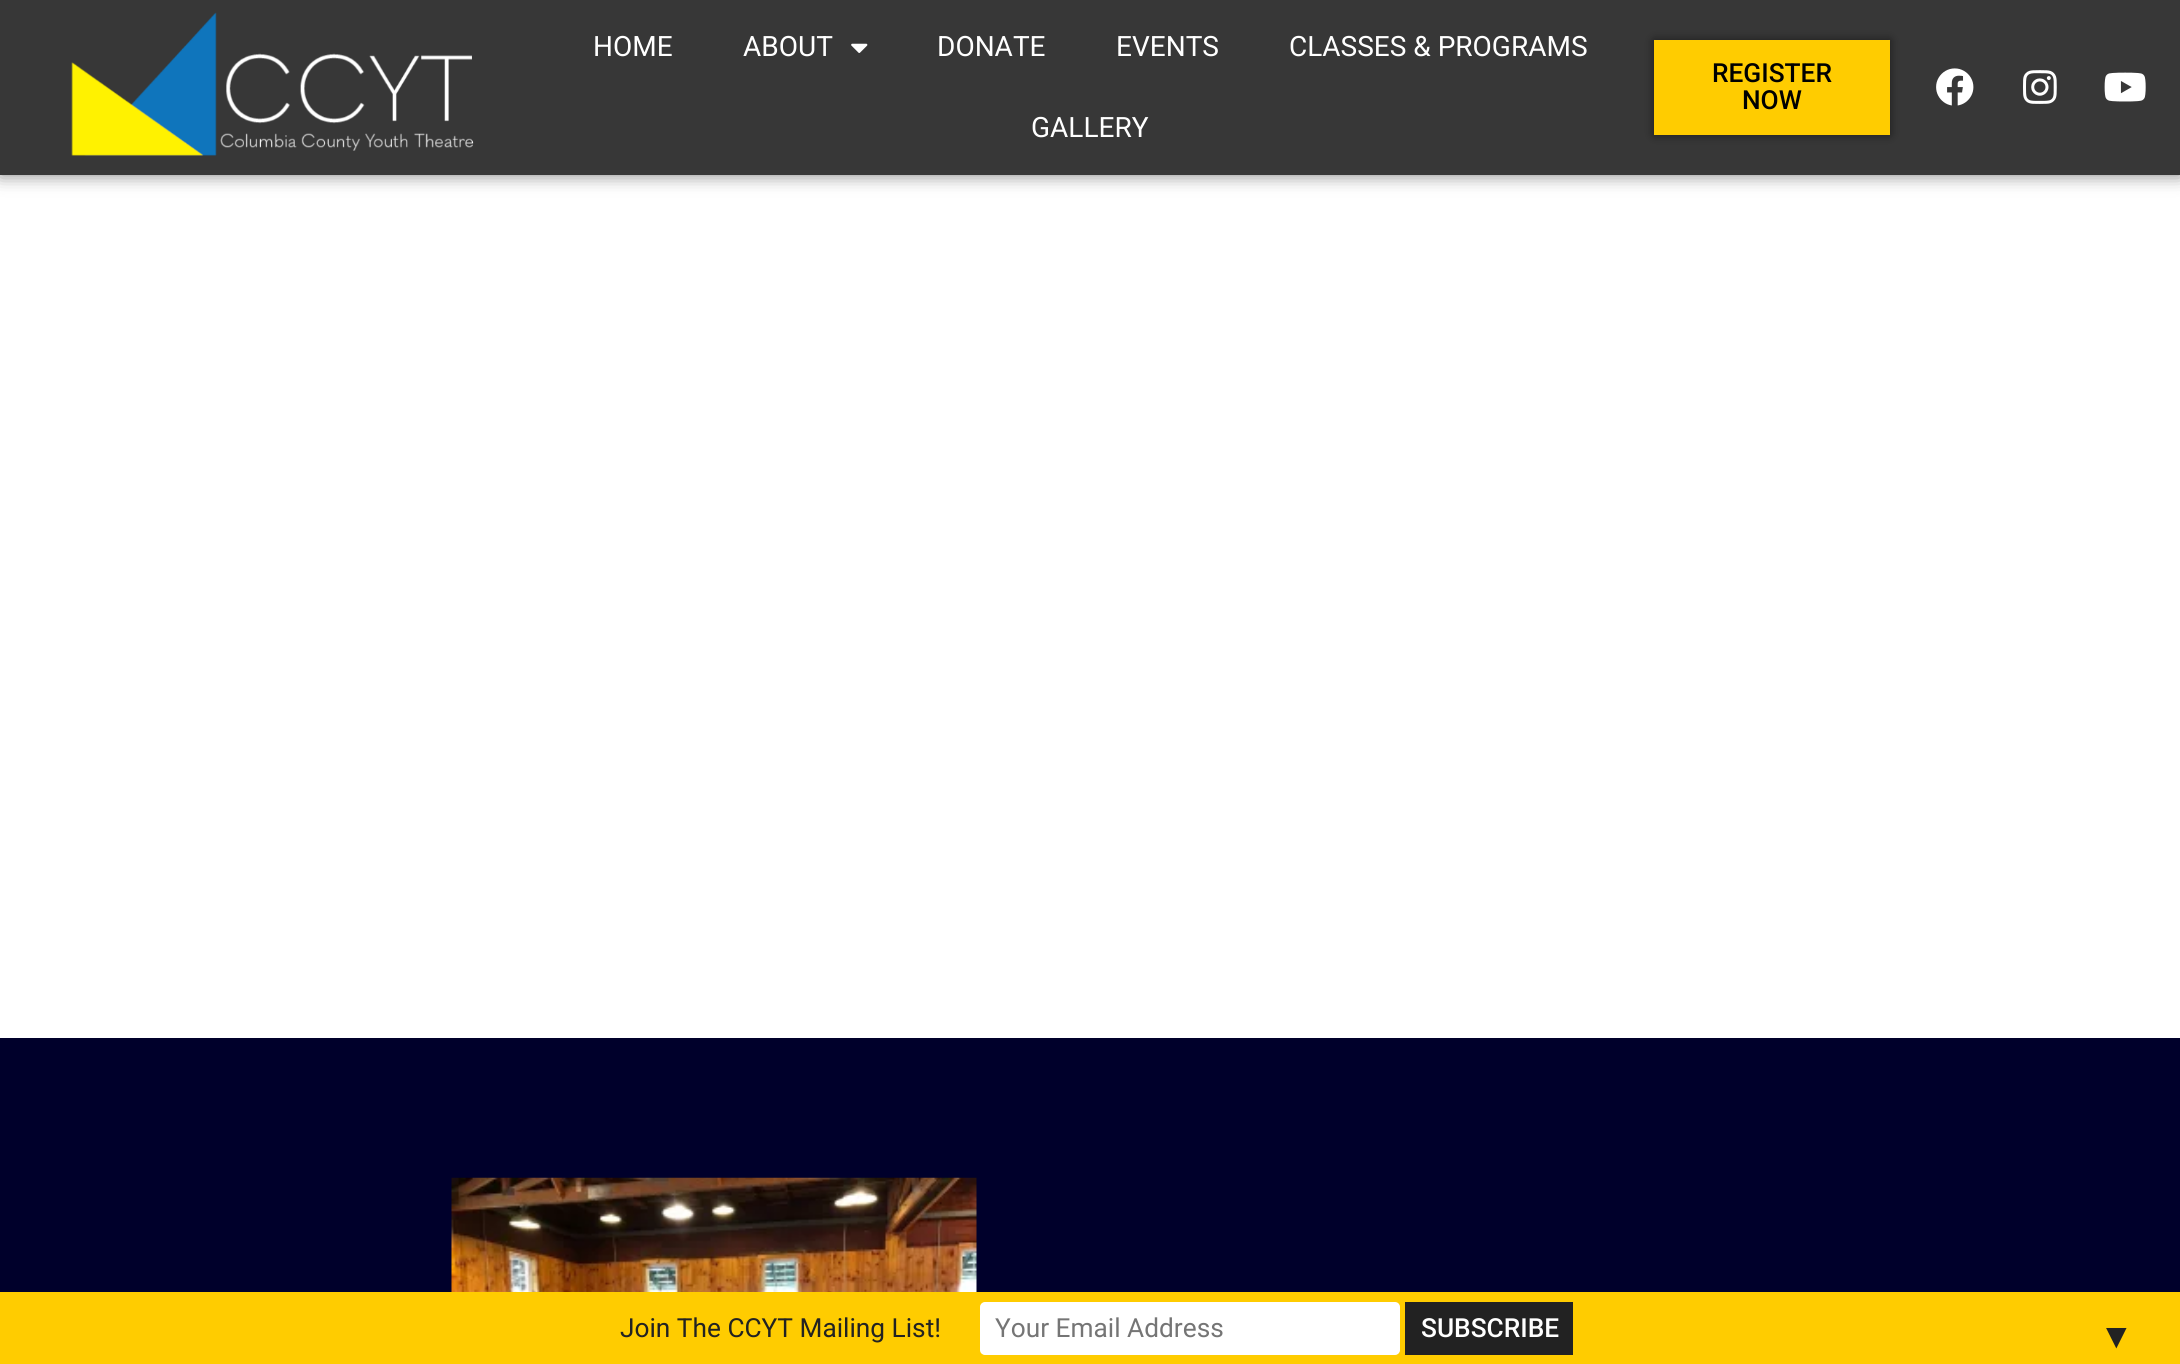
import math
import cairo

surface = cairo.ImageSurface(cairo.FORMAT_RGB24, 2180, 1364)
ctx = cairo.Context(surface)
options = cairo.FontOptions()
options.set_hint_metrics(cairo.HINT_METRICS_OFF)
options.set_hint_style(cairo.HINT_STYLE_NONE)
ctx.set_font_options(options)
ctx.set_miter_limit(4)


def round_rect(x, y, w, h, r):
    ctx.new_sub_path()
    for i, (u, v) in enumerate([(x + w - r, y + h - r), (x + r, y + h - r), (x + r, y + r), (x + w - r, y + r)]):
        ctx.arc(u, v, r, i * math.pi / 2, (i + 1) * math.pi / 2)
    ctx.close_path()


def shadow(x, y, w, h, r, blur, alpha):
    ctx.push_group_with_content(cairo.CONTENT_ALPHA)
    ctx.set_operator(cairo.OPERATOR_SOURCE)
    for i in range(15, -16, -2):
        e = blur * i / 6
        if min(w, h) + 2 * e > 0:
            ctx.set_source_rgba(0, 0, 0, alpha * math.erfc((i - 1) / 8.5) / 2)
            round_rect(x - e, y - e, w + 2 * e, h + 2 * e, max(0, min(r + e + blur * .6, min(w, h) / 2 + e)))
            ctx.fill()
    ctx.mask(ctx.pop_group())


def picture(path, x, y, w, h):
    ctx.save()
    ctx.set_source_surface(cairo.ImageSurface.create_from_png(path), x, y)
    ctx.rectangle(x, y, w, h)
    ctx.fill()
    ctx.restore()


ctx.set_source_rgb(1, 1, 1)
ctx.paint()
ctx.set_source_rgb(0, 0, 0)
shadow(0, 0, 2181, 175, 0, 9, 0.5)
ctx.set_source_rgb(0.216, 0.216, 0.216)
ctx.rectangle(0, 0, 2180, 175)
ctx.fill()
picture("img1.png", 71, 12, 403, 144)
ctx.select_font_face("Roboto")
ctx.set_font_size(28)
ctx.set_source_rgb(1, 1, 1)
ctx.move_to(593, 56)
ctx.show_text("HOME")
ctx.move_to(743, 56)
ctx.show_text("ABOUT")
picture("img2.png", 851, 43, 17, 10)
ctx.move_to(937, 56)
ctx.show_text("DONATE")
ctx.move_to(1116, 56)
ctx.show_text("EVENTS")
ctx.move_to(1289, 56)
ctx.show_text("CLASSES & PROGRAMS")
ctx.move_to(1031, 137)
ctx.show_text("GALLERY")
ctx.set_source_rgb(0, 0, 0)
shadow(1654, 40, 236, 95, 0, 5, 0.5)
ctx.set_source_rgb(1, 0.8, 0)
ctx.rectangle(1654, 40, 236, 95)
ctx.fill()
ctx.select_font_face("Roboto Medium")
ctx.set_font_size(26.25)
ctx.set_source_rgb(0, 0, 0)
ctx.move_to(1712, 82)
ctx.show_text("REGISTER")
ctx.move_to(1742, 109)
ctx.show_text("NOW")
picture("img3.png", 1936, 68, 38, 38)
picture("img4.png", 2023, 70, 34, 34)
picture("img5.png", 2104, 72, 42, 30)
ctx.set_source_rgb(0, 0, 0.169)
ctx.rectangle(0, 1038, 2180, 254)
ctx.fill()
picture("img6.png", 451, 1177, 526, 115)
ctx.set_source_rgb(1, 0.8, 0)
ctx.rectangle(0, 1292, 2180, 72)
ctx.fill()
ctx.select_font_face("Roboto")
ctx.set_source_rgb(0.133, 0.133, 0.133)
ctx.move_to(620, 1337)
ctx.show_text("Join The CCYT Mailing List!")
ctx.set_source_rgb(1, 1, 1)
round_rect(981, 1303, 418, 51, 4)
ctx.fill_preserve()
ctx.stroke()
ctx.set_source_rgb(0.459, 0.459, 0.459)
ctx.move_to(995, 1337)
ctx.show_text("Your Email Address")
ctx.set_source_rgb(0.133, 0.133, 0.133)
ctx.rectangle(1405, 1302, 168, 53)
ctx.fill()
ctx.select_font_face("Roboto Medium")
ctx.set_source_rgb(1, 1, 1)
ctx.move_to(1421, 1337)
ctx.show_text("SUBSCRIBE")
ctx.select_font_face("Liberation Sans")
ctx.set_font_size(35)
ctx.set_source_rgb(0.133, 0.133, 0.133)
ctx.move_to(2099, 1348)
ctx.show_text("▼")
surface.write_to_png("page.png")
